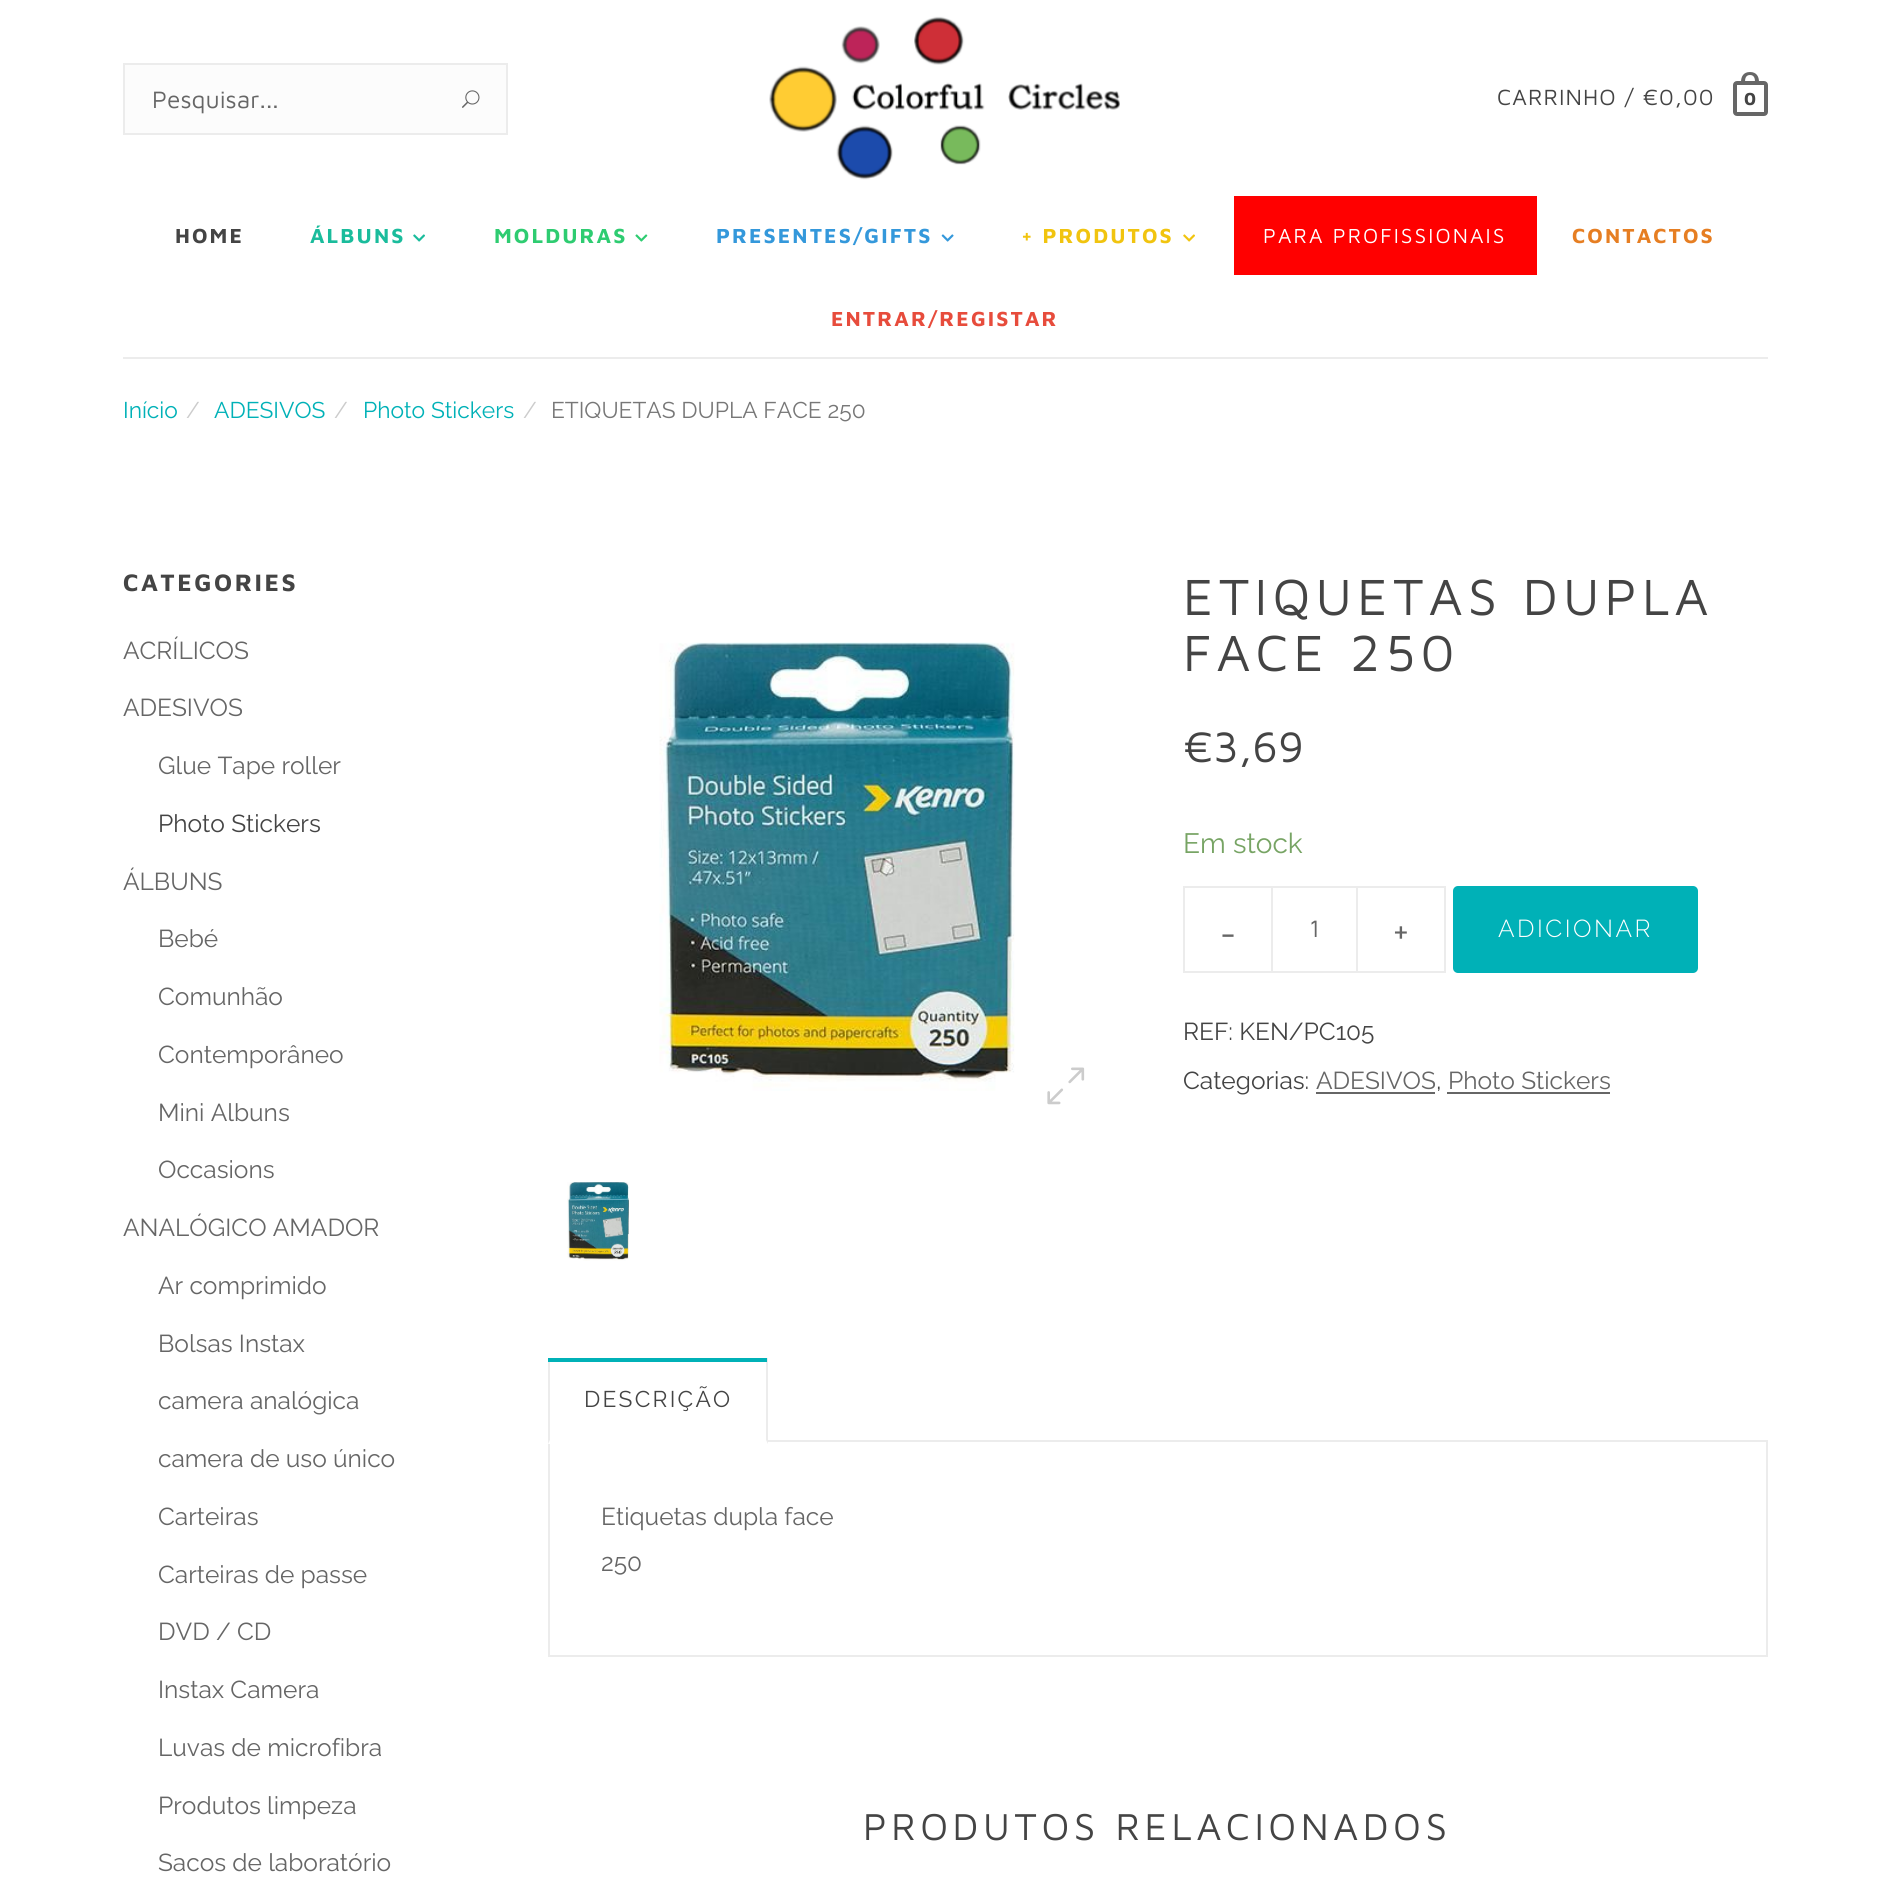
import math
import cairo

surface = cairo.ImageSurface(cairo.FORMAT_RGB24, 1889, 1893)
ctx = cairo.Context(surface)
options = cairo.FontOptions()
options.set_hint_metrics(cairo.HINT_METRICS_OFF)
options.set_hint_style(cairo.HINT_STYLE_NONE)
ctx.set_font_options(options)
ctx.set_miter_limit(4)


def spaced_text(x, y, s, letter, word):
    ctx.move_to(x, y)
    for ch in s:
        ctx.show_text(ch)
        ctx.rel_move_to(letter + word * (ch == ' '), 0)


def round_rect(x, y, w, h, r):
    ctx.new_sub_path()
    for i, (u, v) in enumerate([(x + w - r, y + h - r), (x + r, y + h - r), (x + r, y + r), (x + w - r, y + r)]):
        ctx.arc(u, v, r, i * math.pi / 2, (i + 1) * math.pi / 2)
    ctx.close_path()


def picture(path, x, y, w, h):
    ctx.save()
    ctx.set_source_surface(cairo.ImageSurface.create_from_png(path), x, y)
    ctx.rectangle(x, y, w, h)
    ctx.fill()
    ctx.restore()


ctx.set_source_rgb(1, 1, 1)
ctx.paint()
ctx.set_source_rgb(0.988, 0.988, 0.988)
ctx.rectangle(124, 64, 383, 70)
ctx.fill_preserve()
ctx.set_source_rgb(0.922, 0.922, 0.922)
ctx.stroke()
ctx.select_font_face("Maven Pro")
ctx.set_font_size(24.5)
ctx.set_source_rgb(0.4, 0.4, 0.4)
ctx.move_to(152, 108)
ctx.show_text("Pesquisar...")
picture("img1.png", 462, 90, 18, 18)
picture("img2.png", 769, 16, 351, 164)
ctx.set_font_size(22.75)
ctx.set_source_rgb(0.267, 0.267, 0.267)
spaced_text(1497, 105, "CARRINHO / €0,00", 1.1, 0)
round_rect(1735, 83, 31, 31, 2)
ctx.set_source_rgb(0.4, 0.4, 0.4)
ctx.set_line_width(4)
ctx.stroke()
ctx.set_fill_rule(cairo.FILL_RULE_EVEN_ODD)
ctx.new_path()
ctx.move_to(1750, 72)
ctx.curve_to(1756.5, 72, 1759, 76.5, 1759, 82)
ctx.line_to(1741, 82)
ctx.curve_to(1741, 76.5, 1743.5, 72, 1750, 72)
ctx.close_path()
ctx.move_to(1750, 75)
ctx.curve_to(1754.5, 75, 1755, 79, 1755, 82)
ctx.line_to(1745, 82)
ctx.curve_to(1745, 79, 1745.5, 75, 1750, 75)
ctx.close_path()
ctx.fill()
ctx.select_font_face("Maven Pro", cairo.FONT_SLANT_NORMAL, cairo.FONT_WEIGHT_BOLD)
ctx.set_font_size(18)
ctx.set_source_rgb(0.267, 0.267, 0.267)
ctx.move_to(1744, 105)
ctx.show_text("0")
ctx.set_source_rgb(0.922, 0.922, 0.922)
ctx.rectangle(123, 357, 1645, 2)
ctx.fill()
ctx.set_font_size(21)
ctx.set_source_rgb(0.267, 0.267, 0.267)
spaced_text(175, 243, "HOME", 2.1, 0)
ctx.set_source_rgb(0.102, 0.737, 0.612)
spaced_text(310, 243, "ÁLBUNS", 2.1, 0)
picture("img3.png", 413, 234, 12, 8)
ctx.set_source_rgb(0.18, 0.8, 0.443)
spaced_text(494, 243, "MOLDURAS", 2.1, 0)
picture("img4.png", 635, 234, 13, 8)
ctx.set_source_rgb(0.204, 0.596, 0.859)
spaced_text(716, 243, "PRESENTES/GIFTS", 2.1, 0)
picture("img5.png", 941, 234, 13, 8)
ctx.set_source_rgb(0.945, 0.769, 0.059)
spaced_text(1021, 243, "+ PRODUTOS", 2.1, 0)
picture("img6.png", 1183, 234, 12, 8)
ctx.set_source_rgb(1, 0, 0)
ctx.rectangle(1234, 196, 303, 79)
ctx.fill()
ctx.select_font_face("Maven Pro")
ctx.set_source_rgb(1, 1, 1)
spaced_text(1263, 243, "PARA PROFISSIONAIS", 2.1, 0)
ctx.select_font_face("Maven Pro", cairo.FONT_SLANT_NORMAL, cairo.FONT_WEIGHT_BOLD)
ctx.set_source_rgb(0.902, 0.494, 0.133)
spaced_text(1572, 243, "CONTACTOS", 2.1, 0)
ctx.set_source_rgb(0.906, 0.298, 0.235)
spaced_text(831, 326, "ENTRAR/REGISTAR", 2.1, 0)
ctx.select_font_face("Raleway")
ctx.set_font_size(22.75)
ctx.set_source_rgb(0, 0.694, 0.718)
ctx.move_to(123, 418)
ctx.show_text("Início")
ctx.set_source_rgb(0.8, 0.8, 0.8)
ctx.move_to(186, 418)
ctx.show_text("/")
ctx.set_source_rgb(0, 0.694, 0.718)
ctx.move_to(214, 418)
ctx.show_text("ADESIVOS")
ctx.set_source_rgb(0.8, 0.8, 0.8)
ctx.move_to(334, 418)
ctx.show_text("/")
ctx.set_source_rgb(0, 0.694, 0.718)
ctx.move_to(363, 418)
ctx.show_text("Photo Stickers")
ctx.set_source_rgb(0.8, 0.8, 0.8)
ctx.move_to(523, 418)
ctx.show_text("/")
ctx.set_source_rgb(0.467, 0.467, 0.467)
ctx.move_to(551, 418)
ctx.show_text("ETIQUETAS DUPLA FACE 250")
ctx.select_font_face("Maven Pro", cairo.FONT_SLANT_NORMAL, cairo.FONT_WEIGHT_BOLD)
ctx.set_font_size(24.5)
ctx.set_source_rgb(0.267, 0.267, 0.267)
spaced_text(123, 591, "CATEGORIES", 2.5, 0)
ctx.select_font_face("Raleway")
ctx.set_source_rgb(0.4, 0.4, 0.4)
ctx.move_to(123, 659)
ctx.show_text("ACRÍLICOS")
ctx.move_to(123, 716)
ctx.show_text("ADESIVOS")
ctx.move_to(158, 774)
ctx.show_text("Glue Tape roller")
ctx.set_source_rgb(0.267, 0.267, 0.267)
ctx.move_to(158, 832)
ctx.show_text("Photo Stickers")
ctx.set_source_rgb(0.4, 0.4, 0.4)
ctx.move_to(123, 890)
ctx.show_text("ÁLBUNS")
ctx.move_to(158, 947)
ctx.show_text("Bebé")
ctx.move_to(158, 1005)
ctx.show_text("Comunhão")
ctx.move_to(158, 1063)
ctx.show_text("Contemporâneo")
ctx.move_to(158, 1121)
ctx.show_text("Mini Albuns")
ctx.move_to(158, 1178)
ctx.show_text("Occasions")
ctx.move_to(123, 1236)
ctx.show_text("ANALÓGICO AMADOR")
ctx.move_to(158, 1294)
ctx.show_text("Ar comprimido")
ctx.move_to(158, 1352)
ctx.show_text("Bolsas Instax")
ctx.move_to(158, 1409)
ctx.show_text("camera analógica")
ctx.move_to(158, 1467)
ctx.show_text("camera de uso único")
ctx.move_to(158, 1525)
ctx.show_text("Carteiras")
ctx.move_to(158, 1583)
ctx.show_text("Carteiras de passe")
ctx.move_to(158, 1640)
ctx.show_text("DVD / CD")
ctx.move_to(158, 1698)
ctx.show_text("Instax Camera")
ctx.move_to(158, 1756)
ctx.show_text("Luvas de microfibra")
ctx.move_to(158, 1814)
ctx.show_text("Produtos limpeza")
ctx.move_to(158, 1871)
ctx.show_text("Sacos de laboratório")
picture("img7.png", 659, 642, 356, 449)
picture("img8.png", 1047, 1067, 38, 38)
picture("img9.png", 567, 1182, 62, 79)
ctx.select_font_face("Maven Pro")
ctx.set_font_size(52.5)
ctx.set_source_rgb(0.267, 0.267, 0.267)
spaced_text(1183, 615, "ETIQUETAS DUPLA", 5.25, 0)
spaced_text(1183, 671, "FACE 250", 5.25, 0)
ctx.set_font_size(44)
ctx.move_to(1183, 762)
ctx.show_text("€3,69")
ctx.select_font_face("Raleway")
ctx.set_font_size(28)
ctx.set_source_rgb(0.467, 0.643, 0.392)
ctx.move_to(1183, 853)
ctx.show_text("Em stock")
ctx.set_source_rgb(0.922, 0.922, 0.922)
ctx.rectangle(1183, 886, 88, 2)
ctx.fill()
ctx.rectangle(1183, 971, 88, 2)
ctx.fill()
ctx.rectangle(1183, 886, 2, 87)
ctx.fill()
ctx.set_font_size(38)
ctx.set_source_rgb(0.4, 0.4, 0.4)
ctx.move_to(1220, 946)
ctx.show_text("-")
ctx.rectangle(1272, 887, 85, 85)
ctx.set_source_rgb(0.922, 0.922, 0.922)
ctx.set_line_width(2)
ctx.stroke()
ctx.select_font_face("Maven Pro")
ctx.set_font_size(24.5)
ctx.set_source_rgb(0.4, 0.4, 0.4)
ctx.move_to(1309, 937)
ctx.show_text("1")
ctx.set_source_rgb(0.922, 0.922, 0.922)
ctx.rectangle(1358, 886, 88, 2)
ctx.fill()
ctx.rectangle(1444, 886, 2, 87)
ctx.fill()
ctx.rectangle(1358, 971, 88, 2)
ctx.fill()
ctx.select_font_face("Raleway")
ctx.set_font_size(38)
ctx.set_source_rgb(0.4, 0.4, 0.4)
ctx.move_to(1393, 946)
ctx.show_text("+")
ctx.set_source_rgb(0, 0.694, 0.718)
round_rect(1453, 886, 245, 87, 5)
ctx.fill()
ctx.select_font_face("Raleway Light")
ctx.set_font_size(24.5)
ctx.set_source_rgb(1, 1, 1)
spaced_text(1498, 937, "ADICIONAR", 2.5, 0)
ctx.select_font_face("Raleway")
ctx.set_source_rgb(0.267, 0.267, 0.267)
ctx.move_to(1183, 1040)
ctx.show_text("REF: KEN/PC105")
ctx.move_to(1183, 1089)
ctx.show_text("Categorias:")
ctx.set_source_rgb(0.4, 0.4, 0.4)
ctx.move_to(1316, 1089)
ctx.show_text("ADESIVOS")
ctx.rectangle(1316, 1092, 119, 2)
ctx.fill()
ctx.set_source_rgb(0.267, 0.267, 0.267)
ctx.move_to(1436, 1089)
ctx.show_text(",")
ctx.set_source_rgb(0.4, 0.4, 0.4)
ctx.move_to(1448, 1089)
ctx.show_text("Photo Stickers")
ctx.rectangle(1447, 1092, 163, 2)
ctx.fill()
ctx.rectangle(549, 1441, 1218, 215)
ctx.set_source_rgb(0.922, 0.922, 0.922)
ctx.stroke()
ctx.set_source_rgb(1, 1, 1)
ctx.rectangle(548, 1440, 220, 4)
ctx.fill()
ctx.set_source_rgb(0.922, 0.922, 0.922)
ctx.rectangle(767, 1358, 1, 1)
ctx.fill()
ctx.set_fill_rule(cairo.FILL_RULE_WINDING)
ctx.new_path()
ctx.move_to(768, 1358)
ctx.line_to(768, 1444)
ctx.line_to(766, 1440)
ctx.line_to(766, 1360)
ctx.close_path()
ctx.fill()
ctx.new_path()
ctx.move_to(548, 1444)
ctx.line_to(548, 1358)
ctx.line_to(550, 1360)
ctx.line_to(550, 1440)
ctx.close_path()
ctx.fill()
ctx.set_source_rgb(0, 0.694, 0.718)
ctx.rectangle(548, 1358, 219, 4)
ctx.fill()
ctx.set_font_size(22.75)
ctx.set_source_rgb(0.267, 0.267, 0.267)
spaced_text(584, 1407, "DESCRIÇÃO", 2.25, 0)
ctx.set_font_size(24.5)
ctx.set_source_rgb(0.4, 0.4, 0.4)
ctx.move_to(601, 1525)
ctx.show_text("Etiquetas dupla face")
ctx.move_to(601, 1571)
ctx.show_text("250")
ctx.select_font_face("Maven Pro")
ctx.set_font_size(38.7)
ctx.set_source_rgb(0.267, 0.267, 0.267)
spaced_text(863, 1840, "PRODUTOS RELACIONADOS", 4.55, 0)
surface.write_to_png("page.png")
